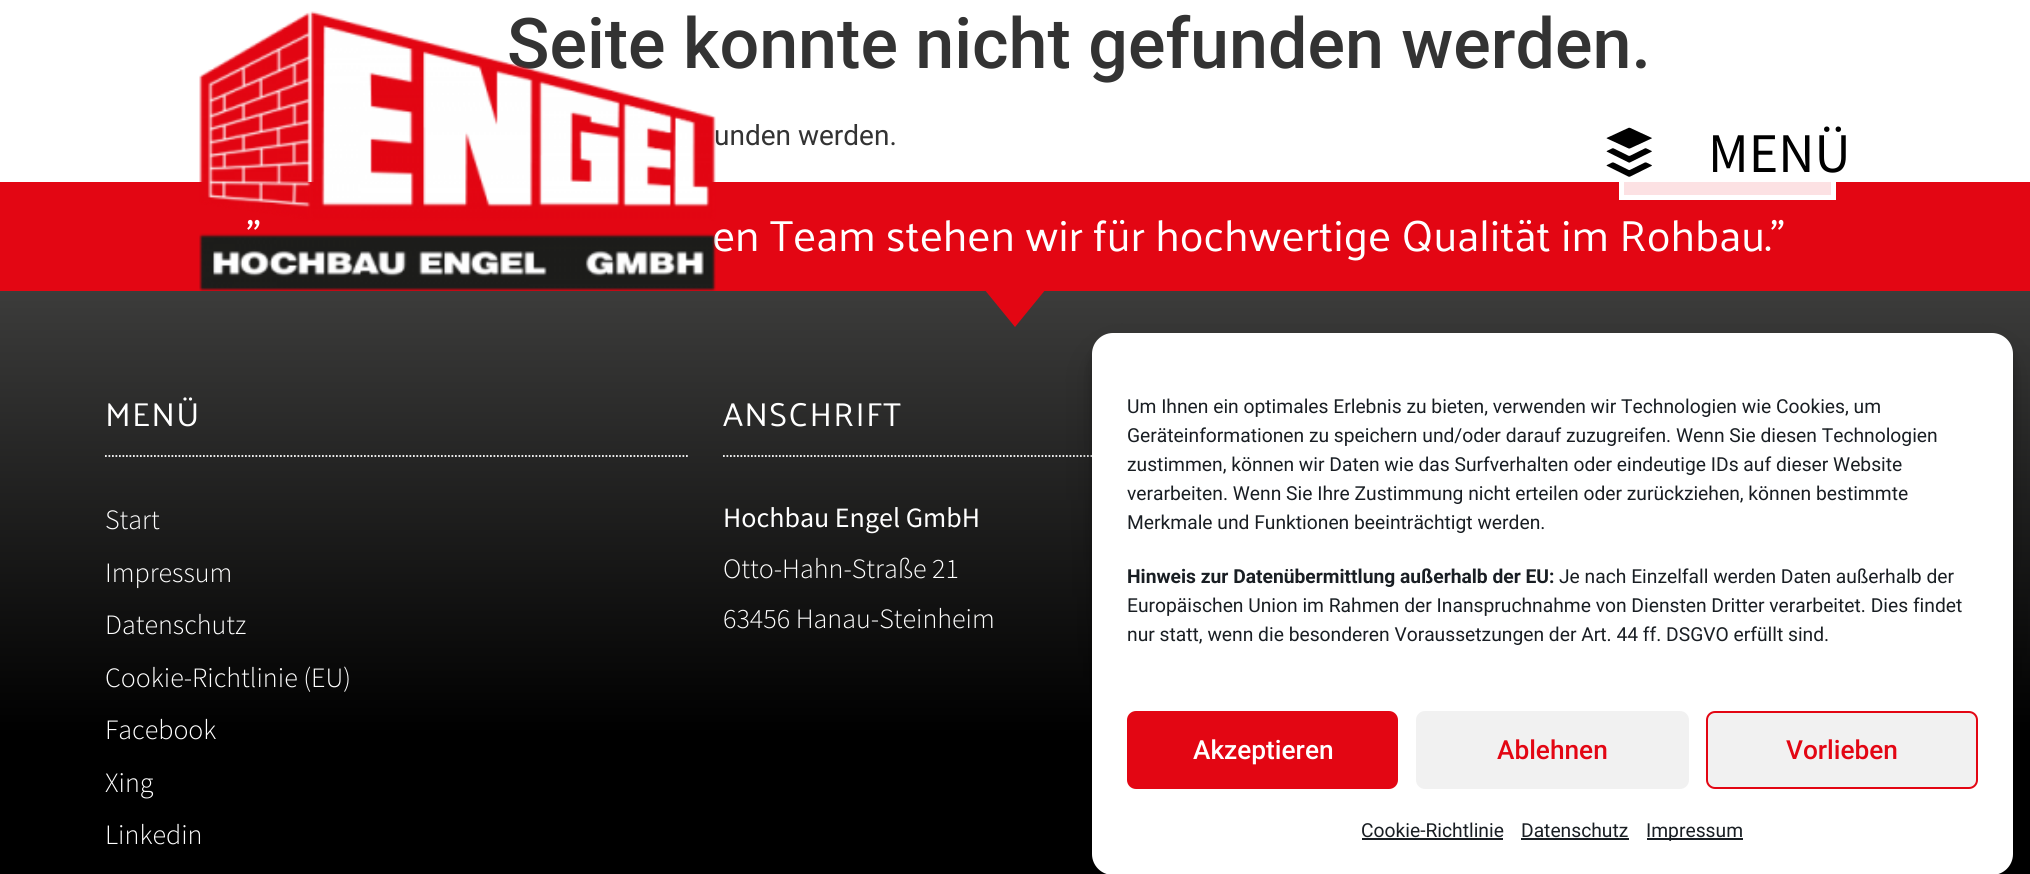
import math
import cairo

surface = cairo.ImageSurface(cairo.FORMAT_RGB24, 2030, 874)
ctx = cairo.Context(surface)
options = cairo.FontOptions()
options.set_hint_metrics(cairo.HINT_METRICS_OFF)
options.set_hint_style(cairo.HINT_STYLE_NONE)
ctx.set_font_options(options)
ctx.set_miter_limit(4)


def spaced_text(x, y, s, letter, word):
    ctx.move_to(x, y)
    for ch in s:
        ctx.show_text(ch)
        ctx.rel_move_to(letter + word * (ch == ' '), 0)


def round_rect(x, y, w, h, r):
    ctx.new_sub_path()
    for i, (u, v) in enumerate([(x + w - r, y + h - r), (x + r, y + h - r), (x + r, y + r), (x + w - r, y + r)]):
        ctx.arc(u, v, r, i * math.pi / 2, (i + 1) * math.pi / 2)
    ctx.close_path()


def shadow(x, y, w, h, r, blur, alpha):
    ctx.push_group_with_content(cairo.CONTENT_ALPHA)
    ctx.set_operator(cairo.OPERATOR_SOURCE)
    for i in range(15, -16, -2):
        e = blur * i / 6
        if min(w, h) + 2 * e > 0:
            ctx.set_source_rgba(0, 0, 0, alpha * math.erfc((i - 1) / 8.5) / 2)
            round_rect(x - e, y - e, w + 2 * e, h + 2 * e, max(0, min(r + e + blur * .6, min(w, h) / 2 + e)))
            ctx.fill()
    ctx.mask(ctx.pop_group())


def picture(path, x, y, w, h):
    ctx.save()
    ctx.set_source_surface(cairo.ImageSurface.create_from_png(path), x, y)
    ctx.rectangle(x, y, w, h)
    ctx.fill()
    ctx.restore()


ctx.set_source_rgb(1, 1, 1)
ctx.paint()
ctx.select_font_face("Roboto Medium")
ctx.set_font_size(70)
ctx.set_source_rgb(0.2, 0.2, 0.2)
ctx.move_to(507, 68)
ctx.show_text("Seite konnte nicht gefunden werden.")
ctx.select_font_face("Roboto")
ctx.set_font_size(28)
ctx.move_to(714, 145)
ctx.show_text("unden werden.")
ctx.set_source_rgb(0.89, 0.024, 0.075)
ctx.rectangle(0, 182, 2030, 109)
ctx.fill()
ctx.select_font_face("Palanquin")
ctx.set_font_size(43.75)
ctx.set_source_rgb(1, 1, 1)
ctx.move_to(247, 251)
ctx.show_text("\"")
ctx.move_to(712, 251)
ctx.show_text("en Team stehen wir für hochwertige Qualität im Rohbau.\"")
picture("img1.png", 199, 11, 517, 280)
ctx.set_source_rgb(0.988, 0.882, 0.89)
ctx.rectangle(1624, 182, 207, 13)
ctx.fill()
ctx.rectangle(1621.5, 107.5, 212, 90)
ctx.set_source_rgb(1, 1, 1)
ctx.set_line_width(5)
ctx.stroke()
picture("img2.png", 1606, 127, 46, 50)
ctx.select_font_face("Source Sans Pro")
ctx.set_font_size(56)
ctx.set_source_rgb(0, 0, 0)
ctx.move_to(1708, 172)
ctx.show_text("MENÜ")
gradient = cairo.LinearGradient(1015, 290, 1015, 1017)
gradient.add_color_stop_rgba(0, 0.235, 0.235, 0.231, 1)
gradient.add_color_stop_rgba(0.61, 0, 0, 0, 1)
ctx.set_source(gradient)
ctx.rectangle(0, 291, 2030, 583)
ctx.fill()
ctx.set_source_rgb(0.89, 0.024, 0.075)
ctx.new_path()
ctx.move_to(1015, 327)
ctx.line_to(984, 289)
ctx.line_to(1046, 289)
ctx.close_path()
ctx.fill()
ctx.new_path()
ctx.move_to(105, 456)
ctx.line_to(688, 456)
ctx.set_source_rgb(1, 1, 1)
ctx.set_line_width(1.8)
ctx.set_dash([1.75, 1.75])
ctx.stroke()
ctx.select_font_face("Palanquin")
ctx.set_font_size(33.25)
spaced_text(105, 426, "MENÜ", 1.25, 0)
ctx.select_font_face("Source Sans Pro Light")
ctx.set_font_size(28)
ctx.move_to(105, 529)
ctx.show_text("Start")
ctx.move_to(105, 582)
ctx.show_text("Impressum")
ctx.move_to(105, 634)
ctx.show_text("Datenschutz")
ctx.move_to(105, 687)
ctx.show_text("Cookie-Richtlinie (EU)")
ctx.move_to(105, 739)
ctx.show_text("Facebook")
ctx.move_to(105, 792)
ctx.show_text("Xing")
ctx.move_to(105, 844)
ctx.show_text("Linkedin")
ctx.new_path()
ctx.move_to(723, 456)
ctx.line_to(1307, 456)
ctx.stroke()
ctx.select_font_face("Palanquin")
ctx.set_font_size(33.25)
spaced_text(723, 426, "ANSCHRIFT", 1.25, 0)
ctx.select_font_face("Source Sans Pro")
ctx.set_font_size(28)
ctx.move_to(723, 527)
ctx.show_text("Hochbau Engel GmbH")
ctx.select_font_face("Source Sans Pro Light")
ctx.move_to(723, 578)
ctx.show_text("Otto-Hahn-Straße 21")
ctx.move_to(723, 628)
ctx.show_text("63456 Hanau-Steinheim")
ctx.set_source_rgb(0, 0, 0)
shadow(1092, 343, 921, 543, 21, 5, 0.23)
shadow(1092, 350, 921, 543, 21, 17.5, 0.19)
ctx.set_source_rgb(1, 1, 1)
round_rect(1092, 333, 921, 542, 21)
ctx.fill()
ctx.select_font_face("Roboto")
ctx.set_font_size(19.25)
ctx.set_source_rgb(0.098, 0.118, 0.137)
ctx.move_to(1127, 413)
ctx.show_text("Um Ihnen ein optimales Erlebnis zu bieten, verwenden wir Technologien wie Cookies, um")
ctx.move_to(1127, 442)
ctx.show_text("Geräteinformationen zu speichern und/oder darauf zuzugreifen. Wenn Sie diesen Technologien")
ctx.move_to(1127, 471)
ctx.show_text("zustimmen, können wir Daten wie das Surfverhalten oder eindeutige IDs auf dieser Website")
ctx.move_to(1127, 500)
ctx.show_text("verarbeiten. Wenn Sie Ihre Zustimmung nicht erteilen oder zurückziehen, können bestimmte")
ctx.move_to(1127, 529)
ctx.show_text("Merkmale und Funktionen beeinträchtigt werden.")
ctx.select_font_face("Roboto", cairo.FONT_SLANT_NORMAL, cairo.FONT_WEIGHT_BOLD)
ctx.move_to(1127, 583)
ctx.show_text("Hinweis zur Datenübermittlung außerhalb der EU:")
ctx.select_font_face("Roboto")
ctx.move_to(1559, 583)
ctx.show_text("Je nach Einzelfall werden Daten außerhalb der")
ctx.move_to(1127, 612)
ctx.show_text("Europäischen Union im Rahmen der Inanspruchnahme von Diensten Dritter verarbeitet. Dies findet")
ctx.move_to(1127, 641)
ctx.show_text("nur statt, wenn die besonderen Voraussetzungen der Art. 44 ff. DSGVO erfüllt sind.")
ctx.set_source_rgb(0.89, 0.024, 0.075)
round_rect(1128, 712, 269, 76, 8)
ctx.fill_preserve()
ctx.set_line_width(2)
ctx.set_dash([])
ctx.stroke()
ctx.select_font_face("Roboto Medium")
ctx.set_font_size(26.25)
ctx.set_source_rgb(1, 1, 1)
ctx.move_to(1193, 759)
ctx.show_text("Akzeptieren")
ctx.set_source_rgb(0.945, 0.945, 0.945)
round_rect(1417, 712, 271, 76, 8)
ctx.fill_preserve()
ctx.stroke()
ctx.set_source_rgb(0.89, 0.024, 0.075)
ctx.move_to(1497, 759)
ctx.show_text("Ablehnen")
ctx.set_source_rgb(0.945, 0.945, 0.945)
round_rect(1707, 712, 270, 76, 8)
ctx.fill_preserve()
ctx.set_source_rgb(0.89, 0.024, 0.075)
ctx.stroke()
ctx.move_to(1786, 759)
ctx.show_text("Vorlieben")
ctx.select_font_face("Roboto")
ctx.set_font_size(19.25)
ctx.set_source_rgb(0.098, 0.118, 0.137)
ctx.move_to(1361, 837)
ctx.show_text("Cookie-Richtlinie")
ctx.rectangle(1362, 838, 141, 2)
ctx.fill()
ctx.move_to(1521, 837)
ctx.show_text("Datenschutz")
ctx.rectangle(1521, 838, 108, 2)
ctx.fill()
ctx.rectangle(1647, 838, 96, 2)
ctx.fill()
ctx.move_to(1646, 837)
ctx.show_text("Impressum")
surface.write_to_png("page.png")
